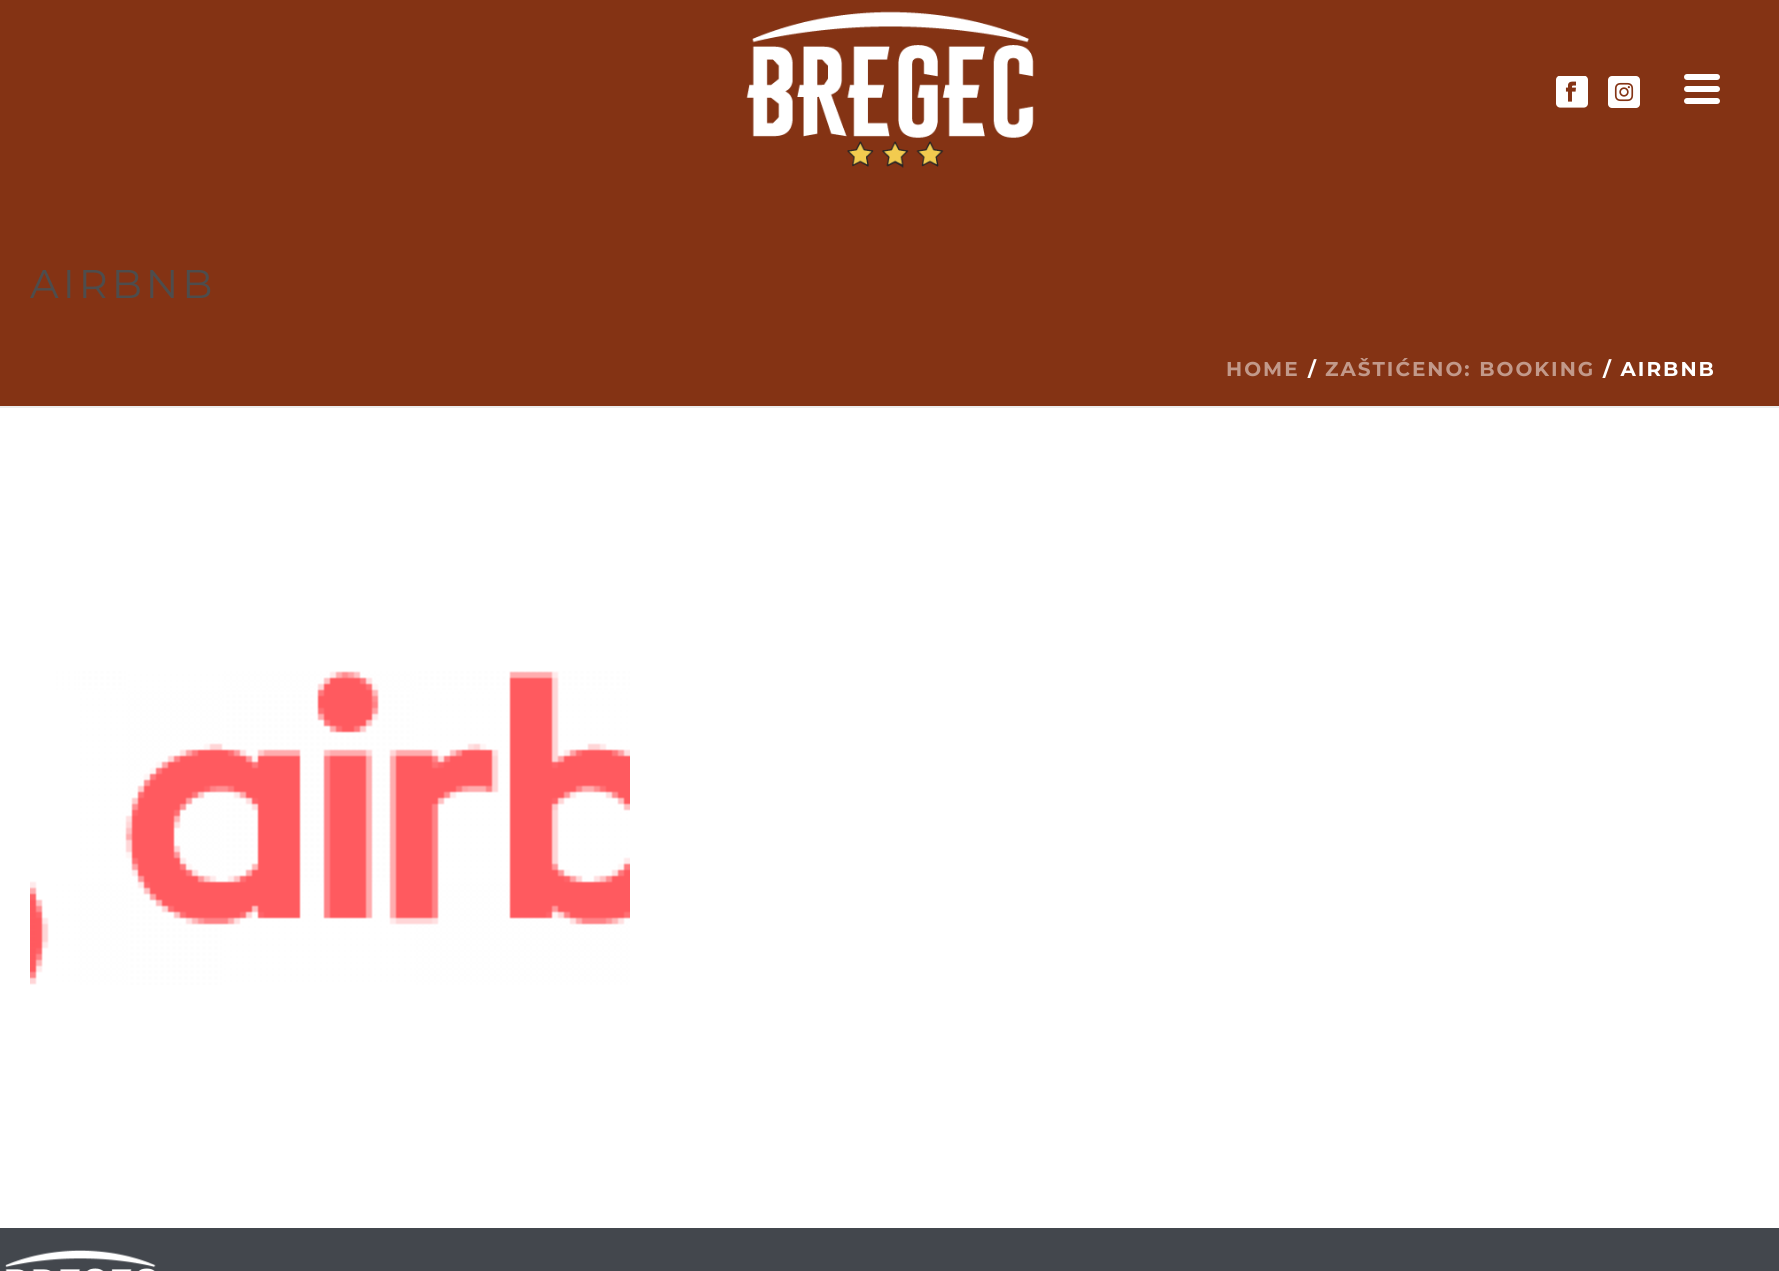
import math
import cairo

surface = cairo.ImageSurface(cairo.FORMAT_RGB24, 1779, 1271)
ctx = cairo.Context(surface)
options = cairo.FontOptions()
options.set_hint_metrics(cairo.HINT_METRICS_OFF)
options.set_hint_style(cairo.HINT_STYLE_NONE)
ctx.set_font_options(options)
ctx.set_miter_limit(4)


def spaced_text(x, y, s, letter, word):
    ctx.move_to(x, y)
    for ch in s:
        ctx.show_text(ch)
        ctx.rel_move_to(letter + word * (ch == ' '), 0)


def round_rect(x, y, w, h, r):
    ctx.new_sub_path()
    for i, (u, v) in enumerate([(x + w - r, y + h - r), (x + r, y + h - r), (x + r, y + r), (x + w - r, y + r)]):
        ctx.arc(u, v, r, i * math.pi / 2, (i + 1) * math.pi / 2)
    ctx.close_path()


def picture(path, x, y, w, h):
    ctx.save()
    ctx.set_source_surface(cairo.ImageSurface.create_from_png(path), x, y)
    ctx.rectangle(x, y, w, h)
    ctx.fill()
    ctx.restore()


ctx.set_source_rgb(1, 1, 1)
ctx.paint()
ctx.set_source_rgb(0.518, 0.2, 0.082)
ctx.rectangle(0, 0, 1779, 406)
ctx.fill()
ctx.set_source_rgb(0.929, 0.929, 0.929)
ctx.rectangle(0, 406, 1779, 2)
ctx.fill()
picture("img1.png", 746, 11, 288, 157)
ctx.set_source_rgb(1, 1, 1)
round_rect(1684, 74, 36, 6, 3)
ctx.fill()
round_rect(1684, 86, 36, 6, 3)
ctx.fill()
round_rect(1684, 98, 36, 6, 3)
ctx.fill()
picture("img2.png", 1556, 76, 32, 32)
picture("img3.png", 1608, 76, 32, 32)
ctx.select_font_face("Montserrat")
ctx.set_font_size(40)
ctx.set_source_rgb(0.302, 0.302, 0.302)
spaced_text(30, 298, "AIRBNB", 4, 0)
ctx.select_font_face("Montserrat", cairo.FONT_SLANT_NORMAL, cairo.FONT_WEIGHT_BOLD)
ctx.set_font_size(20)
ctx.set_source_rgb(0.761, 0.6, 0.541)
spaced_text(1226, 376, "HOME", 2, 0)
ctx.set_source_rgb(1, 1, 1)
spaced_text(1308, 376, "/", 2, 0)
ctx.set_source_rgb(0.761, 0.6, 0.541)
spaced_text(1325, 376, "ZAŠTIĆENO: BOOKING", 2, 0)
ctx.set_source_rgb(1, 1, 1)
spaced_text(1603, 376, "/ AIRBNB", 2, 0)
picture("img4.png", 30, 671, 600, 314)
ctx.set_source_rgb(0.263, 0.278, 0.302)
ctx.rectangle(0, 1228, 1779, 43)
ctx.fill()
picture("img5.png", 5, 1250, 151, 21)
surface.write_to_png("page.png")
